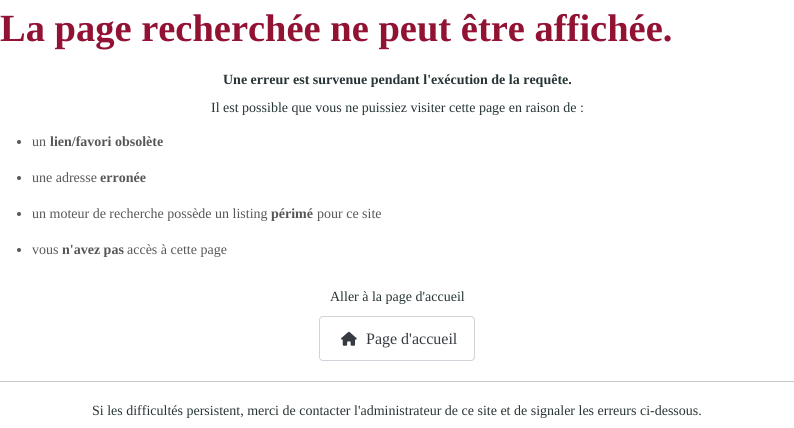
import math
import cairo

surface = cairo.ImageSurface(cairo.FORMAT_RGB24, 794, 428)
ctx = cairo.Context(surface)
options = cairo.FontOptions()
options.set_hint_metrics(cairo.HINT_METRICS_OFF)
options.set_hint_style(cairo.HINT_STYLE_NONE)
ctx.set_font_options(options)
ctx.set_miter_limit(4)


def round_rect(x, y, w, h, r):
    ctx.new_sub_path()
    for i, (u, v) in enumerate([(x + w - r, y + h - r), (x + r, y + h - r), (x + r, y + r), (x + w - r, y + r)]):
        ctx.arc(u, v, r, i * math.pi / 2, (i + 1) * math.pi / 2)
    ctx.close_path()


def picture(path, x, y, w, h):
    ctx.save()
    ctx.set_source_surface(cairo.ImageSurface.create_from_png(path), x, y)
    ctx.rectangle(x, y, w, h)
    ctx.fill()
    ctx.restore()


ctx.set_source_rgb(1, 1, 1)
ctx.paint()
ctx.select_font_face("Liberation Serif", cairo.FONT_SLANT_NORMAL, cairo.FONT_WEIGHT_BOLD)
ctx.set_font_size(38.5)
ctx.set_source_rgb(0.573, 0.071, 0.204)
ctx.move_to(0, 41)
ctx.show_text("La page recherchée ne peut être affichée.")
ctx.set_font_size(14)
ctx.set_source_rgb(0.153, 0.204, 0.208)
ctx.move_to(223, 84)
ctx.show_text("Une erreur est survenue pendant l'exécution de la requête.")
ctx.select_font_face("Liberation Serif")
ctx.move_to(211, 112)
ctx.show_text("Il est possible que vous ne puissiez visiter cette page en raison de :")
ctx.set_source_rgb(0.341, 0.341, 0.341)
ctx.new_path()
ctx.arc(19, 142, 2, 0, 2 * math.pi)
ctx.fill()
ctx.move_to(32, 146)
ctx.show_text("un")
ctx.select_font_face("Liberation Serif", cairo.FONT_SLANT_NORMAL, cairo.FONT_WEIGHT_BOLD)
ctx.move_to(50, 146)
ctx.show_text("lien/favori obsolète")
ctx.new_path()
ctx.arc(19, 178, 2, 0, 2 * math.pi)
ctx.fill()
ctx.select_font_face("Liberation Serif")
ctx.move_to(32, 182)
ctx.show_text("une adresse")
ctx.select_font_face("Liberation Serif", cairo.FONT_SLANT_NORMAL, cairo.FONT_WEIGHT_BOLD)
ctx.move_to(100, 182)
ctx.show_text("erronée")
ctx.new_path()
ctx.arc(19, 214, 2, 0, 2 * math.pi)
ctx.fill()
ctx.select_font_face("Liberation Serif")
ctx.move_to(32, 218)
ctx.show_text("un moteur de recherche possède un listing")
ctx.select_font_face("Liberation Serif", cairo.FONT_SLANT_NORMAL, cairo.FONT_WEIGHT_BOLD)
ctx.move_to(271, 218)
ctx.show_text("périmé")
ctx.select_font_face("Liberation Serif")
ctx.move_to(317, 218)
ctx.show_text("pour ce site")
ctx.new_path()
ctx.arc(19, 250, 2, 0, 2 * math.pi)
ctx.fill()
ctx.move_to(32, 254)
ctx.show_text("vous")
ctx.select_font_face("Liberation Serif", cairo.FONT_SLANT_NORMAL, cairo.FONT_WEIGHT_BOLD)
ctx.move_to(62, 254)
ctx.show_text("n'avez pas")
ctx.select_font_face("Liberation Serif")
ctx.move_to(127, 254)
ctx.show_text("accès à cette page")
ctx.set_source_rgb(0.153, 0.204, 0.208)
ctx.move_to(330, 301)
ctx.show_text("Aller à la page d'accueil")
round_rect(319.5, 316.5, 155, 44, 3.5)
ctx.set_source_rgb(0.808, 0.831, 0.855)
ctx.set_line_width(1)
ctx.stroke()
picture("img1.png", 341, 331, 16, 15)
ctx.set_font_size(16)
ctx.set_source_rgb(0.208, 0.231, 0.255)
ctx.move_to(366, 344)
ctx.show_text("Page d'accueil")
ctx.set_source_rgb(0.784, 0.788, 0.792)
ctx.rectangle(0, 381, 794, 1)
ctx.fill()
ctx.set_font_size(14)
ctx.set_source_rgb(0.153, 0.204, 0.208)
ctx.move_to(92, 415)
ctx.show_text("Si les difficultés persistent, merci de contacter l'administrateur de ce site et de signaler les erreurs ci-dessous.")
surface.write_to_png("page.png")
